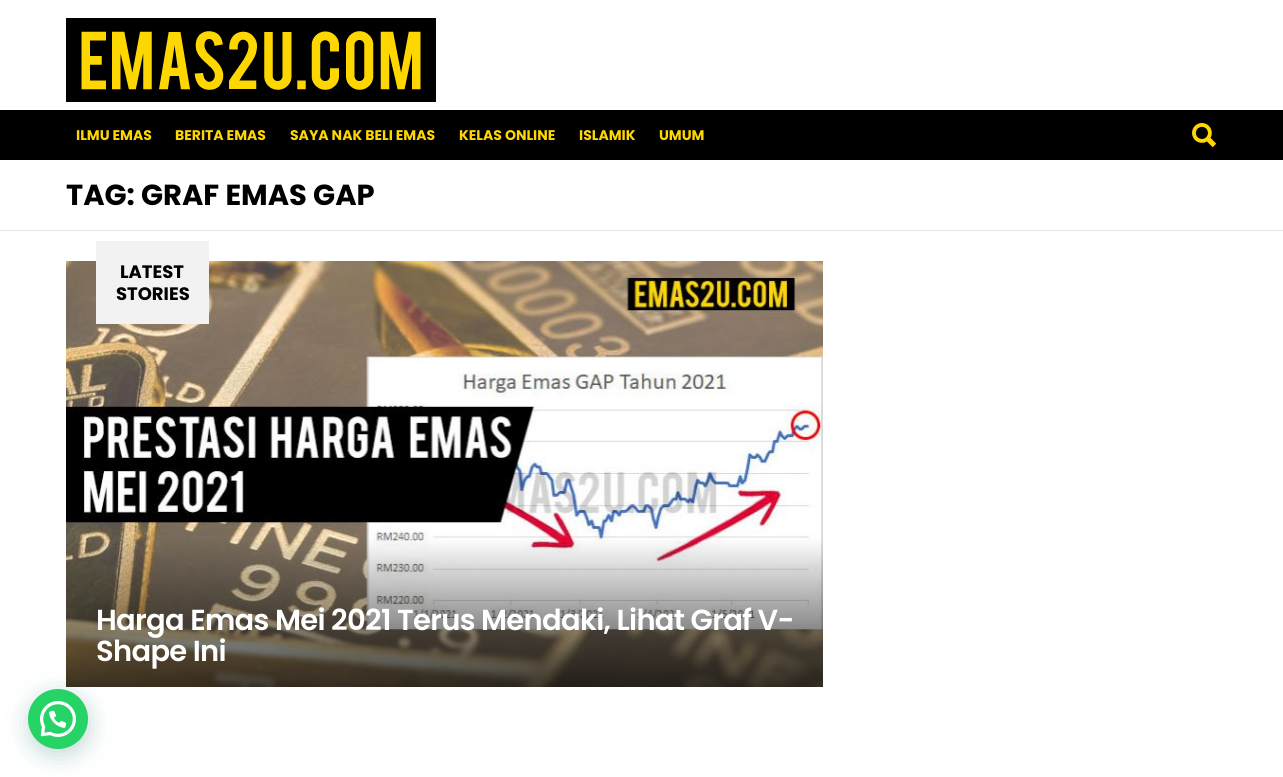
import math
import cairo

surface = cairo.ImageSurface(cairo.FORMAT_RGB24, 1283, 777)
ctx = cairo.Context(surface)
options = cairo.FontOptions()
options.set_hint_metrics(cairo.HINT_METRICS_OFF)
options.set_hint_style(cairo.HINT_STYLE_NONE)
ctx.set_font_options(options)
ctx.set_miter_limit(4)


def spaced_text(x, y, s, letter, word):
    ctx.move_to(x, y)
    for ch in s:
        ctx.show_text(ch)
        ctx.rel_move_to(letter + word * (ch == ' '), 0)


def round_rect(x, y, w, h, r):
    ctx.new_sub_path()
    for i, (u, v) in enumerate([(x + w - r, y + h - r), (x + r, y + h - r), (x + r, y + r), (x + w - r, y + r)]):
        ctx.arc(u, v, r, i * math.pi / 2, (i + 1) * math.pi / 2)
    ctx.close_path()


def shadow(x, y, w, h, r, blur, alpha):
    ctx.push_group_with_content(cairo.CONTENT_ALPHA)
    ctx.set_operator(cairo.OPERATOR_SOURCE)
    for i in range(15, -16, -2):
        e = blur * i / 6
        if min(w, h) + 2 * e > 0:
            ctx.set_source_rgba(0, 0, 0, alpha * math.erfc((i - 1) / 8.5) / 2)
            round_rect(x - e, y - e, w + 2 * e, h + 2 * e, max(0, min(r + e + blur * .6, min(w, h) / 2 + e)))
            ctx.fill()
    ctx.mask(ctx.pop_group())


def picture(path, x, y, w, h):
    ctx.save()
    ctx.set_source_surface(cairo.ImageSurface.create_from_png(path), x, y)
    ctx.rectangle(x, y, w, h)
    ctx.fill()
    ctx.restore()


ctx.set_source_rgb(1, 1, 1)
ctx.paint()
picture("img1.png", 66, 18, 370, 84)
ctx.set_source_rgb(0, 0, 0)
ctx.rectangle(0, 110, 1283, 50)
ctx.fill()
ctx.select_font_face("Poppins", cairo.FONT_SLANT_NORMAL, cairo.FONT_WEIGHT_BOLD)
ctx.set_font_size(14)
ctx.set_source_rgb(1, 0.843, 0)
ctx.move_to(76, 140)
ctx.show_text("ILMU EMAS")
ctx.move_to(175, 140)
ctx.show_text("BERITA EMAS")
ctx.move_to(290, 140)
ctx.show_text("SAYA NAK BELI EMAS")
ctx.move_to(459, 140)
ctx.show_text("KELAS ONLINE")
ctx.move_to(579, 140)
ctx.show_text("ISLAMIK")
ctx.move_to(659, 140)
ctx.show_text("UMUM")
picture("img2.png", 1192, 123, 24, 24)
ctx.set_font_size(29)
ctx.set_source_rgb(0, 0, 0)
ctx.move_to(66, 205)
ctx.show_text("TAG: GRAF EMAS GAP")
ctx.set_source_rgb(0.902, 0.902, 0.902)
ctx.rectangle(0, 230, 1283, 1)
ctx.fill()
picture("img3.png", 66, 261, 757, 426)
ctx.set_source_rgb(0.949, 0.949, 0.949)
ctx.rectangle(96, 241, 113, 83)
ctx.fill()
ctx.set_font_size(18)
ctx.set_source_rgb(0, 0, 0)
ctx.move_to(120, 278)
ctx.show_text("LATEST")
ctx.move_to(116, 300)
ctx.show_text("STORIES")
ctx.select_font_face("Poppins SemiBold")
ctx.set_font_size(29)
ctx.set_source_rgb(1, 1, 1)
spaced_text(96, 630, "Harga Emas Mei 2021 Terus Mendaki, Lihat Graf V-", -0.7, 0)
spaced_text(96, 661, "Shape Ini", -0.7, 0)
ctx.set_source_rgb(0.027, 0.369, 0.329)
shadow(29, 695, 60, 60, 30, 12, 0.24)
ctx.set_source_rgb(0.145, 0.827, 0.4)
ctx.arc(58, 719, 30, 0, 2 * math.pi)
ctx.fill()
picture("img4.png", 40, 701, 36, 36)
surface.write_to_png("page.png")
